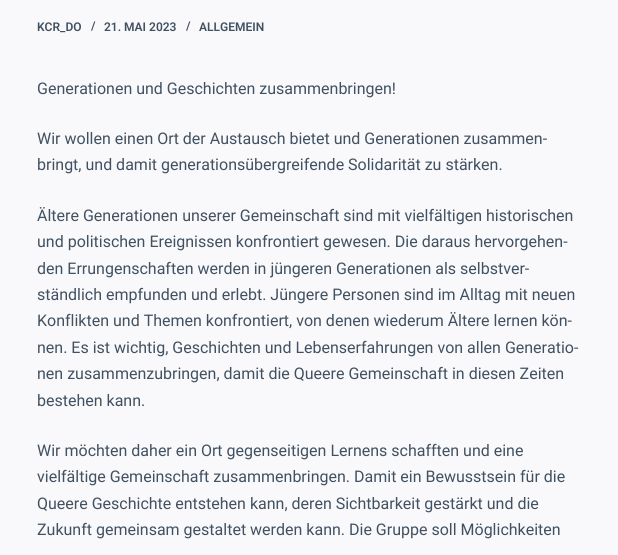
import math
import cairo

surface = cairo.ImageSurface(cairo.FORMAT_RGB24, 618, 555)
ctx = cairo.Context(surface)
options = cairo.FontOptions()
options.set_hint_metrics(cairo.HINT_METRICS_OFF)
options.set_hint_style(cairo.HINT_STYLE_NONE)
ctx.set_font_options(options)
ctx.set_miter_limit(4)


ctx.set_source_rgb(0.973, 0.976, 0.984)
ctx.paint()
ctx.select_font_face("Roboto SemiBold")
ctx.set_font_size(12)
ctx.set_source_rgb(0.255, 0.318, 0.38)
ctx.move_to(37, 31)
ctx.show_text("KCR_DO")
ctx.move_to(91, 30)
ctx.show_text("/")
ctx.move_to(104, 31)
ctx.show_text("21. MAI 2023")
ctx.move_to(186, 30)
ctx.show_text("/")
ctx.move_to(199, 31)
ctx.show_text("ALLGEMEIN")
ctx.select_font_face("Roboto")
ctx.set_font_size(16)
ctx.move_to(37, 94)
ctx.show_text("Generationen und Geschichten zusammenbringen!")
ctx.move_to(37, 144)
ctx.show_text("Wir wollen einen Ort der Austausch bietet und Generationen zusammen-")
ctx.move_to(37, 170)
ctx.show_text("bringt, und damit generationsübergreifende Solidarität zu stärken.")
ctx.move_to(37, 221)
ctx.show_text("Ältere Generationen unserer Gemeinschaft sind mit vielfältigen historischen")
ctx.move_to(37, 247)
ctx.show_text("und politischen Ereignissen konfrontiert gewesen. Die daraus hervorgehen-")
ctx.move_to(37, 274)
ctx.show_text("den Errungenschaften werden in jüngeren Generationen als selbstver-")
ctx.move_to(37, 300)
ctx.show_text("ständlich empfunden und erlebt. Jüngere Personen sind im Alltag mit neuen")
ctx.move_to(37, 326)
ctx.show_text("Konflikten und Themen konfrontiert, von denen wiederum Ältere lernen kön-")
ctx.move_to(37, 353)
ctx.show_text("nen. Es ist wichtig, Geschichten und Lebenserfahrungen von allen Generatio-")
ctx.move_to(37, 379)
ctx.show_text("nen zusammenzubringen, damit die Queere Gemeinschaft in diesen Zeiten")
ctx.move_to(37, 406)
ctx.show_text("bestehen kann.")
ctx.move_to(37, 456)
ctx.show_text("Wir möchten daher ein Ort gegenseitigen Lernens schafften und eine")
ctx.move_to(37, 482)
ctx.show_text("vielfältige Gemeinschaft zusammenbringen. Damit ein Bewusstsein für die")
ctx.move_to(37, 509)
ctx.show_text("Queere Geschichte entstehen kann, deren Sichtbarkeit gestärkt und die")
ctx.move_to(37, 535)
ctx.show_text("Zukunft gemeinsam gestaltet werden kann. Die Gruppe soll Möglichkeiten")
surface.write_to_png("page.png")
